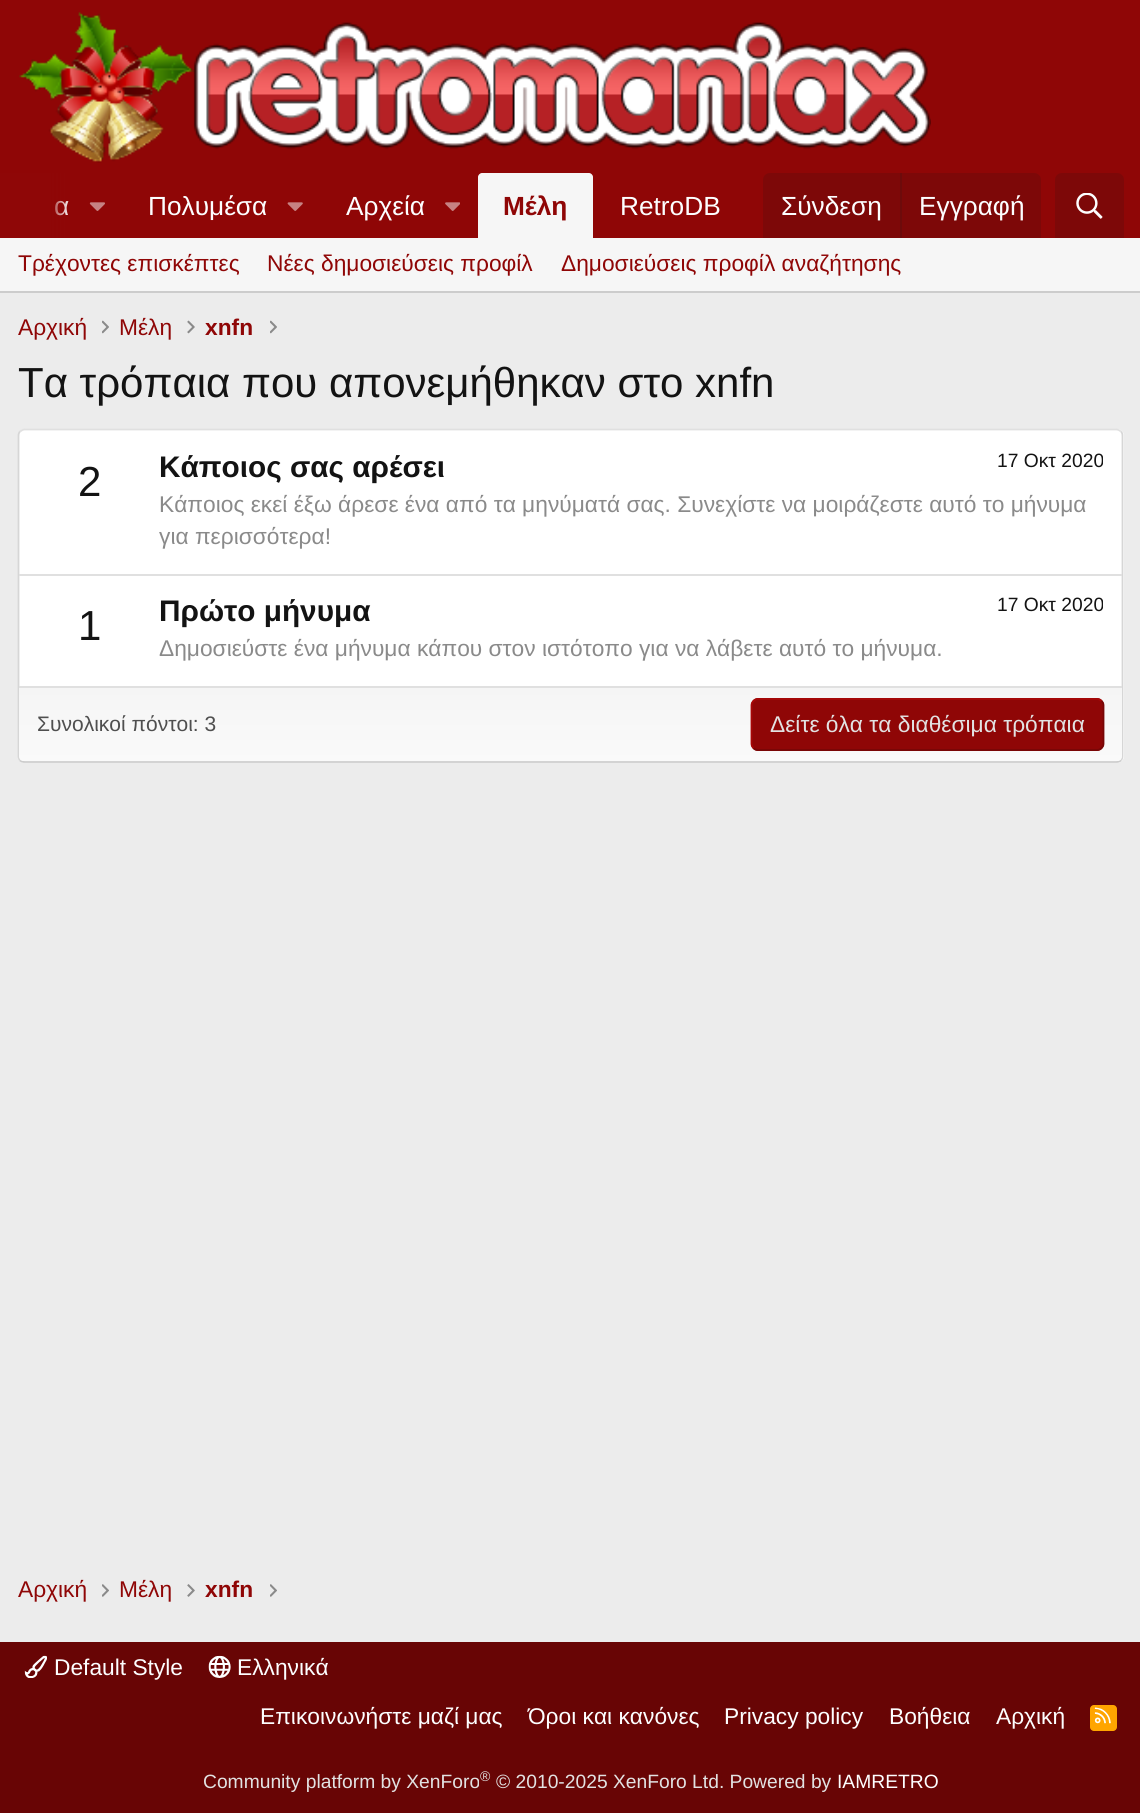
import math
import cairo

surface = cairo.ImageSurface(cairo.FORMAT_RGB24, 1140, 1813)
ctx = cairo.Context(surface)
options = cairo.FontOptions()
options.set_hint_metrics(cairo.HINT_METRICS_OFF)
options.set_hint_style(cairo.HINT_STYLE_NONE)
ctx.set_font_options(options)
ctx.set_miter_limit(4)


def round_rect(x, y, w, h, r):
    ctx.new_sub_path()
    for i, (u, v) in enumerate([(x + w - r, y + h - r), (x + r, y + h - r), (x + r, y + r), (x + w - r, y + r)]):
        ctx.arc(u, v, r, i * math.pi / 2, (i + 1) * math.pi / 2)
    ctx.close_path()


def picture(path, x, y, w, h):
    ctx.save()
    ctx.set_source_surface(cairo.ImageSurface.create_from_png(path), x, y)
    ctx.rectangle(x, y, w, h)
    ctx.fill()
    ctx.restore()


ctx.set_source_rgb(0.922, 0.922, 0.922)
ctx.paint()
ctx.set_source_rgb(0.561, 0.027, 0.027)
ctx.rectangle(0, 0, 1140, 173)
ctx.fill()
picture("img1.png", 19, 12, 912, 151)
ctx.rectangle(46, 173, 1094, 65)
ctx.fill()
ctx.select_font_face("Liberation Sans")
ctx.set_font_size(26.25)
ctx.set_source_rgb(0.992, 0.996, 1)
ctx.move_to(54, 215)
ctx.show_text("α")
gradient = cairo.LinearGradient(0, 206, 70, 206)
gradient.add_color_stop_rgba(0.66, 0.561, 0.027, 0.027, 1)
gradient.add_color_stop_rgba(1, 0.561, 0.027, 0.027, 0)
ctx.set_source(gradient)
ctx.rectangle(0, 173, 69, 65)
ctx.fill()
picture("img2.png", 89, 202, 16, 9)
ctx.set_source_rgb(0.992, 0.996, 1)
ctx.move_to(148, 215)
ctx.show_text("Πολυμέσα")
picture("img3.png", 287, 202, 16, 9)
ctx.move_to(346, 215)
ctx.show_text("Αρχεία")
picture("img4.png", 445, 202, 15, 9)
ctx.set_source_rgb(0.961, 0.961, 0.961)
ctx.new_path()
ctx.move_to(482, 173)
ctx.line_to(589, 173)
ctx.curve_to(591, 173, 593, 175, 593, 177)
ctx.line_to(593, 238)
ctx.line_to(478, 238)
ctx.line_to(478, 177)
ctx.curve_to(478, 175, 480, 173, 482, 173)
ctx.close_path()
ctx.fill()
ctx.select_font_face("Liberation Sans", cairo.FONT_SLANT_NORMAL, cairo.FONT_WEIGHT_BOLD)
ctx.set_source_rgb(0.561, 0.027, 0.027)
ctx.move_to(503, 215)
ctx.show_text("Μέλη")
ctx.select_font_face("Liberation Sans")
ctx.set_source_rgb(0.992, 0.996, 1)
ctx.move_to(620, 215)
ctx.show_text("RetroDB")
ctx.set_source_rgb(0.49, 0.035, 0.035)
ctx.new_path()
ctx.move_to(770, 173)
ctx.line_to(1034, 173)
ctx.curve_to(1038, 173, 1041, 176, 1041, 180)
ctx.line_to(1041, 238)
ctx.line_to(763, 238)
ctx.line_to(763, 180)
ctx.curve_to(763, 176, 766, 173, 770, 173)
ctx.close_path()
ctx.fill()
ctx.set_source_rgb(0.992, 0.996, 1)
ctx.move_to(781, 215)
ctx.show_text("Σύνδεση")
ctx.set_source_rgb(0.427, 0.043, 0.043)
ctx.rectangle(900, 173, 2, 65)
ctx.fill()
ctx.set_source_rgb(0.992, 0.996, 1)
ctx.move_to(919, 215)
ctx.show_text("Εγγραφή")
ctx.set_source_rgb(0.49, 0.035, 0.035)
ctx.new_path()
ctx.move_to(1062, 173)
ctx.line_to(1117, 173)
ctx.curve_to(1121, 173, 1124, 176, 1124, 180)
ctx.line_to(1124, 238)
ctx.line_to(1055, 238)
ctx.line_to(1055, 180)
ctx.curve_to(1055, 176, 1058, 173, 1062, 173)
ctx.close_path()
ctx.fill()
picture("img5.png", 1076, 193, 27, 26)
ctx.set_source_rgb(0.961, 0.961, 0.961)
ctx.rectangle(0, 238, 1140, 53)
ctx.fill()
ctx.set_source_rgb(0.8, 0.8, 0.8)
ctx.rectangle(0, 291, 1140, 2)
ctx.fill()
ctx.set_font_size(22.75)
ctx.set_source_rgb(0.561, 0.027, 0.027)
ctx.move_to(18, 271)
ctx.show_text("Τρέχοντες επισκέπτες")
ctx.move_to(267, 271)
ctx.show_text("Νέες δημοσιεύσεις προφίλ")
ctx.move_to(561, 271)
ctx.show_text("Δημοσιεύσεις προφίλ αναζήτησης")
ctx.move_to(18, 335)
ctx.show_text("Αρχική")
picture("img6.png", 102, 320, 7, 14)
ctx.move_to(119, 335)
ctx.show_text("Μέλη")
picture("img7.png", 187, 320, 8, 14)
ctx.select_font_face("Liberation Sans", cairo.FONT_SLANT_NORMAL, cairo.FONT_WEIGHT_BOLD)
ctx.move_to(205, 335)
ctx.show_text("xnfn")
picture("img6.png", 270, 320, 7, 14)
ctx.select_font_face("Liberation Sans")
ctx.set_font_size(42)
ctx.set_source_rgb(0.078, 0.078, 0.078)
ctx.move_to(18, 397)
ctx.show_text("Τα τρόπαια που απονεμήθηκαν στο xnfn")
ctx.set_source_rgb(1, 1, 1)
round_rect(18, 429, 1106, 334, 7)
ctx.fill()
ctx.new_path()
ctx.move_to(20, 431.5)
ctx.curve_to(21.5, 430.5, 23, 429.5, 24.5, 429.5)
ctx.line_to(1116.5, 429.5)
ctx.curve_to(1118, 429.5, 1119.5, 430.5, 1121, 431.5)
ctx.set_source_rgb(0.878, 0.878, 0.878)
ctx.set_line_width(1.8)
ctx.stroke()
ctx.new_path()
ctx.move_to(1121, 431.5)
ctx.curve_to(1122, 432.5, 1122.5, 434, 1122.5, 436)
ctx.line_to(1122.5, 756)
ctx.curve_to(1122.5, 757.5, 1122, 759, 1121, 760.5)
ctx.set_source_rgb(0.839, 0.839, 0.839)
ctx.stroke()
ctx.new_path()
ctx.move_to(1121, 760.5)
ctx.curve_to(1119.5, 761.5, 1118, 762, 1116.5, 762)
ctx.line_to(24.5, 762)
ctx.curve_to(23, 762, 21.5, 761.5, 20, 760.5)
ctx.set_source_rgb(0.8, 0.8, 0.8)
ctx.stroke()
ctx.new_path()
ctx.move_to(20, 760.5)
ctx.curve_to(19, 759, 18.5, 757.5, 18.5, 756)
ctx.line_to(18.5, 436)
ctx.curve_to(18.5, 434, 19, 432.5, 20, 431.5)
ctx.set_source_rgb(0.839, 0.839, 0.839)
ctx.stroke()
ctx.set_source_rgb(0.078, 0.078, 0.078)
ctx.move_to(78, 496)
ctx.show_text("2")
ctx.select_font_face("Liberation Sans", cairo.FONT_SLANT_NORMAL, cairo.FONT_WEIGHT_BOLD)
ctx.set_font_size(29.75)
ctx.move_to(159, 477)
ctx.show_text("Κάποιος σας αρέσει")
ctx.select_font_face("Liberation Sans")
ctx.set_font_size(19.25)
ctx.move_to(997, 467)
ctx.show_text("17 Οκτ 2020")
ctx.set_font_size(22.75)
ctx.set_source_rgb(0.541, 0.541, 0.541)
ctx.move_to(159, 512)
ctx.show_text("Κάποιος εκεί έξω άρεσε ένα από τα μηνύματά σας. Συνεχίστε να μοιράζεστε αυτό το μήνυμα")
ctx.move_to(159, 544)
ctx.show_text("για περισσότερα!")
ctx.set_source_rgb(0.878, 0.878, 0.878)
ctx.rectangle(19, 574, 1103, 2)
ctx.fill()
ctx.set_font_size(42)
ctx.set_source_rgb(0.078, 0.078, 0.078)
ctx.move_to(78, 640)
ctx.show_text("1")
ctx.select_font_face("Liberation Sans", cairo.FONT_SLANT_NORMAL, cairo.FONT_WEIGHT_BOLD)
ctx.set_font_size(29.75)
ctx.move_to(159, 621)
ctx.show_text("Πρώτο μήνυμα")
ctx.select_font_face("Liberation Sans")
ctx.set_font_size(19.25)
ctx.move_to(997, 611)
ctx.show_text("17 Οκτ 2020")
ctx.set_font_size(22.75)
ctx.set_source_rgb(0.541, 0.541, 0.541)
ctx.move_to(159, 656)
ctx.show_text("Δημοσιεύστε ένα μήνυμα κάπου στον ιστότοπο για να λάβετε αυτό το μήνυμα.")
gradient = cairo.LinearGradient(571, 688, 571, 761)
gradient.add_color_stop_rgba(0, 0.961, 0.961, 0.961, 1)
gradient.add_color_stop_rgba(1, 0.98, 0.98, 0.98, 1)
ctx.set_source(gradient)
ctx.new_path()
ctx.move_to(19, 688)
ctx.line_to(1122, 688)
ctx.line_to(1122, 756)
ctx.curve_to(1122, 759, 1120, 761, 1117, 761)
ctx.line_to(24, 761)
ctx.curve_to(21, 761, 19, 759, 19, 756)
ctx.close_path()
ctx.fill()
ctx.set_source_rgb(0.878, 0.878, 0.878)
ctx.rectangle(19, 686, 1103, 2)
ctx.fill()
ctx.set_font_size(21)
ctx.set_source_rgb(0.31, 0.31, 0.31)
ctx.move_to(37, 731)
ctx.show_text("Συνολικοί πόντοι: 3")
ctx.set_source_rgb(0.561, 0.027, 0.027)
round_rect(751, 698, 353, 53, 7)
ctx.fill()
ctx.new_path()
ctx.move_to(1101.5, 701)
ctx.curve_to(1102.5, 702, 1103.5, 703.5, 1103.5, 705)
ctx.line_to(1103.5, 744)
ctx.curve_to(1103.5, 745.5, 1102.5, 747, 1101.5, 748)
ctx.curve_to(1100.5, 749, 1099, 750, 1097, 750)
ctx.line_to(758, 750)
ctx.curve_to(756, 750, 754.5, 749, 753.5, 748)
ctx.set_source_rgb(0.467, 0.024, 0.024)
ctx.stroke()
ctx.new_path()
ctx.move_to(753.5, 748)
ctx.curve_to(752.5, 747, 751.5, 745.5, 751.5, 744)
ctx.line_to(751.5, 705)
ctx.curve_to(751.5, 703.5, 752.5, 702, 753.5, 701)
ctx.curve_to(754.5, 700, 756, 699, 758, 699)
ctx.line_to(1097, 699)
ctx.curve_to(1099, 699, 1100.5, 700, 1101.5, 701)
ctx.set_source_rgb(0.655, 0.031, 0.031)
ctx.stroke()
ctx.set_font_size(22.75)
ctx.set_source_rgb(0.886, 0.886, 0.886)
ctx.move_to(770, 732)
ctx.show_text("Δείτε όλα τα διαθέσιμα τρόπαια")
ctx.set_source_rgb(0.561, 0.027, 0.027)
ctx.move_to(18, 1597)
ctx.show_text("Αρχική")
picture("img8.png", 102, 1584, 7, 13)
ctx.move_to(119, 1597)
ctx.show_text("Μέλη")
picture("img9.png", 187, 1584, 8, 13)
ctx.select_font_face("Liberation Sans", cairo.FONT_SLANT_NORMAL, cairo.FONT_WEIGHT_BOLD)
ctx.move_to(205, 1597)
ctx.show_text("xnfn")
picture("img8.png", 270, 1584, 7, 13)
ctx.set_source_rgb(0.408, 0.02, 0.02)
ctx.rectangle(0, 1642, 1140, 171)
ctx.fill()
picture("img10.png", 24, 1655, 23, 23)
ctx.select_font_face("Liberation Sans")
ctx.set_source_rgb(0.992, 0.996, 1)
ctx.move_to(54, 1675)
ctx.show_text("Default Style")
picture("img11.png", 208, 1655, 23, 23)
ctx.move_to(237, 1675)
ctx.show_text("Ελληνικά")
ctx.move_to(260, 1724)
ctx.show_text("Επικοινωνήστε μαζί μας")
ctx.move_to(528, 1724)
ctx.show_text("Όροι και κανόνες")
ctx.move_to(724, 1724)
ctx.show_text("Privacy policy")
ctx.move_to(889, 1724)
ctx.show_text("Βοήθεια")
ctx.move_to(996, 1724)
ctx.show_text("Αρχική")
ctx.set_source_rgb(1, 0.647, 0)
round_rect(1090, 1705, 27, 26, 4)
ctx.fill()
picture("img12.png", 1094, 1707, 17, 17)
ctx.set_font_size(19.25)
ctx.set_source_rgb(0.886, 0.886, 0.886)
ctx.move_to(203, 1788)
ctx.show_text("Community platform by XenForo")
ctx.set_font_size(14)
ctx.move_to(480, 1781)
ctx.show_text("®")
ctx.set_font_size(19.25)
ctx.move_to(496, 1788)
ctx.show_text("© 2010-2025 XenForo Ltd. Powered by")
ctx.set_source_rgb(0.992, 0.996, 1)
ctx.move_to(837, 1788)
ctx.show_text("IAMRETRO")
surface.write_to_png("page.png")
